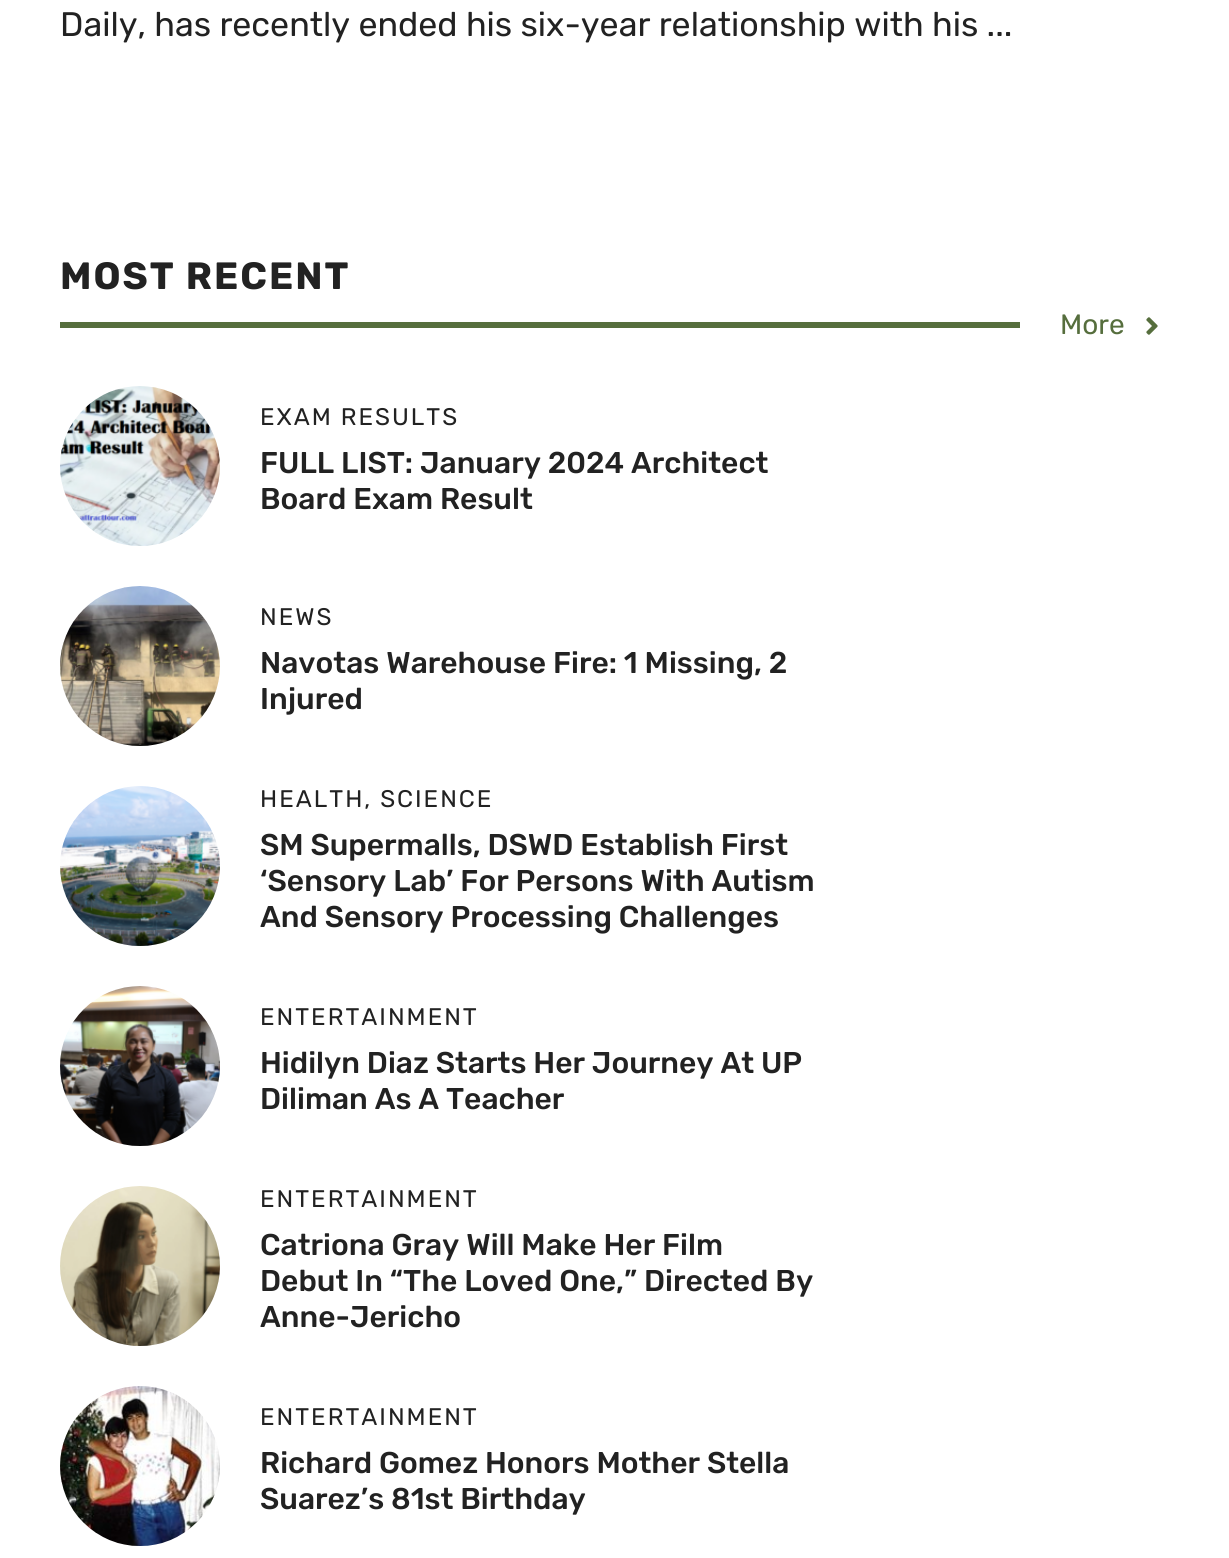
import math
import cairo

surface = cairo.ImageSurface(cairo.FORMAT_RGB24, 1229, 1558)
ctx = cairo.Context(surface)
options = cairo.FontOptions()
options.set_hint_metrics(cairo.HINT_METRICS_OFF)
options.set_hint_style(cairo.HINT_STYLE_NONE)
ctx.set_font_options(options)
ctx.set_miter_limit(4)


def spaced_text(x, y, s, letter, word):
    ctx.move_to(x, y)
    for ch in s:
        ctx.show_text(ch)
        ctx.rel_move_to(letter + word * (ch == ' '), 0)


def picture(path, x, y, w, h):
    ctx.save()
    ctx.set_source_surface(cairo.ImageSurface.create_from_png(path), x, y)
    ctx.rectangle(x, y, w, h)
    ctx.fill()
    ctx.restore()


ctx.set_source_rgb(1, 1, 1)
ctx.paint()
ctx.select_font_face("Rubik")
ctx.set_font_size(34)
ctx.set_source_rgb(0.133, 0.133, 0.133)
ctx.move_to(60, 36)
ctx.show_text("Daily, has recently ended his six-year relationship with his ...")
ctx.select_font_face("Rubik", cairo.FONT_SLANT_NORMAL, cairo.FONT_WEIGHT_BOLD)
ctx.set_font_size(38)
spaced_text(60, 289, "MOST RECENT", 2, 0)
ctx.set_source_rgb(0.337, 0.431, 0.239)
ctx.rectangle(60, 322, 960, 6)
ctx.fill()
ctx.select_font_face("Rubik")
ctx.set_font_size(28)
ctx.move_to(1060, 334)
ctx.show_text("More")
picture("img1.png", 1146, 317, 12, 18)
picture("img2.png", 60, 386, 160, 160)
ctx.set_font_size(24)
ctx.set_source_rgb(0.133, 0.133, 0.133)
spaced_text(260, 425, "EXAM RESULTS", 2, 0)
ctx.select_font_face("Rubik Medium")
ctx.set_font_size(30)
ctx.move_to(260, 473)
ctx.show_text("FULL LIST: January 2024 Architect")
ctx.move_to(260, 509)
ctx.show_text("Board Exam Result")
picture("img3.png", 60, 586, 160, 160)
ctx.select_font_face("Rubik")
ctx.set_font_size(24)
spaced_text(260, 625, "NEWS", 2, 0)
ctx.select_font_face("Rubik Medium")
ctx.set_font_size(30)
ctx.move_to(260, 673)
ctx.show_text("Navotas Warehouse Fire: 1 Missing, 2")
ctx.move_to(260, 709)
ctx.show_text("Injured")
picture("img4.png", 60, 786, 160, 160)
ctx.select_font_face("Rubik")
ctx.set_font_size(24)
spaced_text(260, 807, "HEALTH, SCIENCE", 2, 0)
ctx.select_font_face("Rubik Medium")
ctx.set_font_size(30)
ctx.move_to(260, 855)
ctx.show_text("SM Supermalls, DSWD Establish First")
ctx.move_to(260, 891)
ctx.show_text("‘Sensory Lab’ For Persons With Autism")
ctx.move_to(260, 927)
ctx.show_text("And Sensory Processing Challenges")
picture("img5.png", 60, 986, 160, 160)
ctx.select_font_face("Rubik")
ctx.set_font_size(24)
spaced_text(260, 1025, "ENTERTAINMENT", 2, 0)
ctx.select_font_face("Rubik Medium")
ctx.set_font_size(30)
ctx.move_to(260, 1073)
ctx.show_text("Hidilyn Diaz Starts Her Journey At UP")
ctx.move_to(260, 1109)
ctx.show_text("Diliman As A Teacher")
picture("img6.png", 60, 1186, 160, 160)
ctx.select_font_face("Rubik")
ctx.set_font_size(24)
spaced_text(260, 1207, "ENTERTAINMENT", 2, 0)
ctx.select_font_face("Rubik Medium")
ctx.set_font_size(30)
ctx.move_to(260, 1255)
ctx.show_text("Catriona Gray Will Make Her Film")
ctx.move_to(260, 1291)
ctx.show_text("Debut In “The Loved One,” Directed By")
ctx.move_to(260, 1327)
ctx.show_text("Anne-Jericho")
picture("img7.png", 60, 1386, 160, 160)
ctx.select_font_face("Rubik")
ctx.set_font_size(24)
spaced_text(260, 1425, "ENTERTAINMENT", 2, 0)
ctx.select_font_face("Rubik Medium")
ctx.set_font_size(30)
ctx.move_to(260, 1473)
ctx.show_text("Richard Gomez Honors Mother Stella")
ctx.move_to(260, 1509)
ctx.show_text("Suarez’s 81st Birthday")
surface.write_to_png("page.png")
